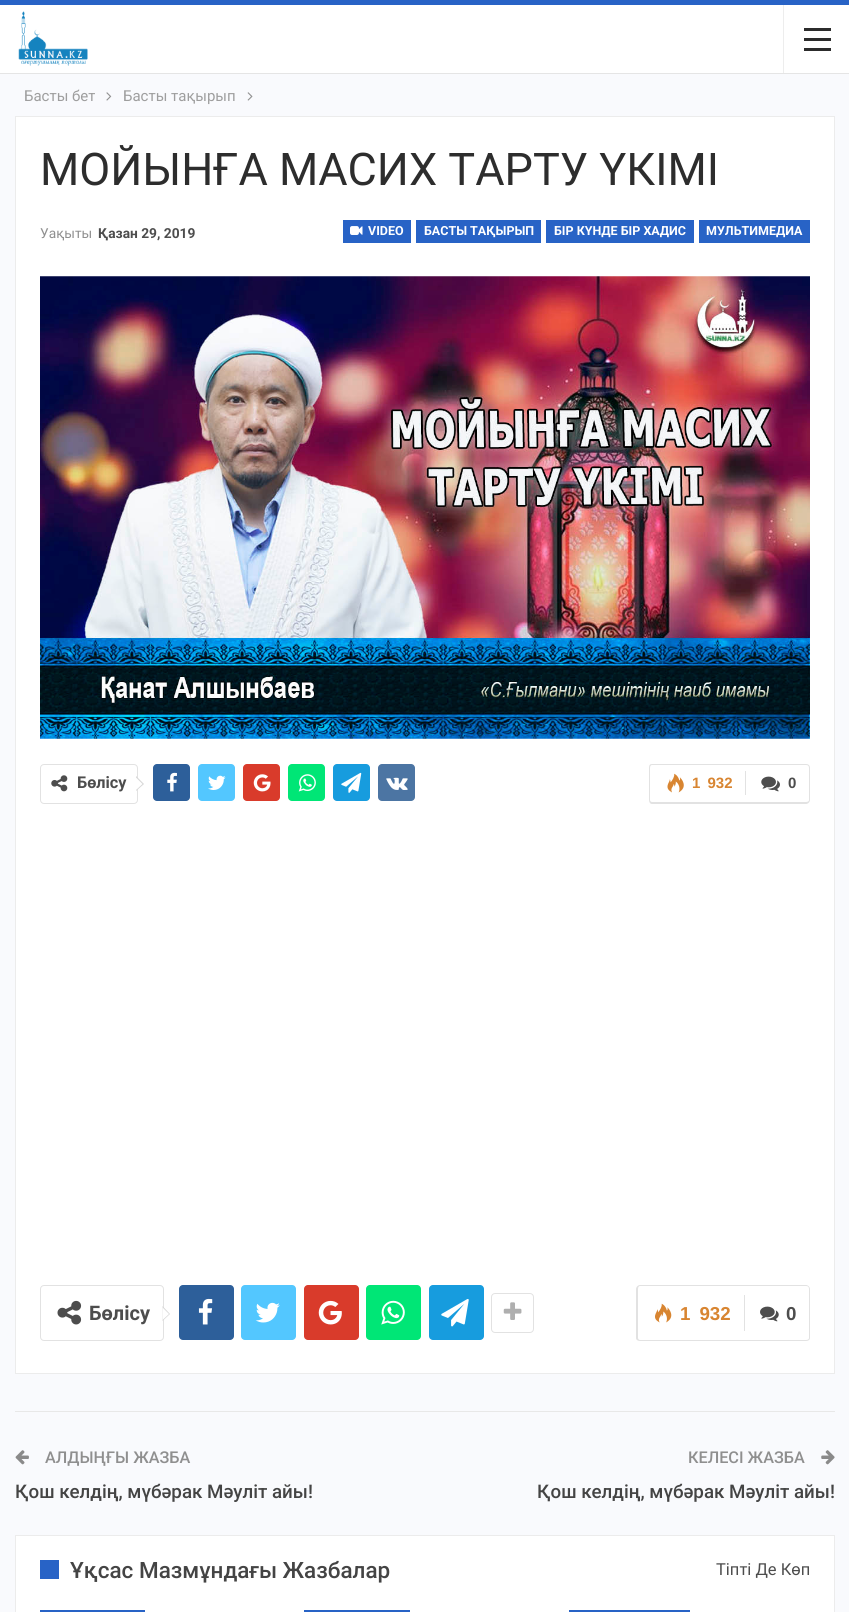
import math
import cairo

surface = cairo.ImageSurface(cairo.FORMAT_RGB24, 849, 1612)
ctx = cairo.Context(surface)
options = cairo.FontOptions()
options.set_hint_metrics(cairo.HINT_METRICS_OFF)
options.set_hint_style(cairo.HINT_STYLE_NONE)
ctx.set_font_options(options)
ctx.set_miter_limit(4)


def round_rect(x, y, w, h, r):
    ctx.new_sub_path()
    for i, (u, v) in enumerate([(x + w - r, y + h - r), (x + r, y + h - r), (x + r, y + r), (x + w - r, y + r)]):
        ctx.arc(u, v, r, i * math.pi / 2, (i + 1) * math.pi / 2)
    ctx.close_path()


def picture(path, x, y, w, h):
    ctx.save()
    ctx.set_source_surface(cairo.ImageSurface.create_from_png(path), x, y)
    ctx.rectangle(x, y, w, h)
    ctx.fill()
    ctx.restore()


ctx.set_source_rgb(0.157, 0.388, 0.776)
ctx.paint()
ctx.set_source_rgb(0.976, 0.98, 0.992)
ctx.rectangle(0, 74, 849, 1538)
ctx.fill()
ctx.set_source_rgb(1, 1, 1)
ctx.rectangle(0, 5, 849, 68)
ctx.fill()
ctx.set_source_rgb(0.898, 0.898, 0.898)
ctx.rectangle(0, 73, 849, 1)
ctx.fill()
picture("img1.png", 18, 11, 70, 55)
ctx.set_source_rgb(0.929, 0.929, 0.929)
ctx.rectangle(783, 5, 1, 68)
ctx.fill()
ctx.set_source_rgb(0.173, 0.173, 0.173)
ctx.rectangle(804, 38, 27, 3)
ctx.fill()
ctx.rectangle(804, 28, 27, 3)
ctx.fill()
ctx.rectangle(804, 48, 27, 3)
ctx.fill()
ctx.select_font_face("Roboto")
ctx.set_font_size(15)
ctx.set_source_rgb(0.62, 0.62, 0.62)
ctx.move_to(24, 101)
ctx.show_text("Басты бет")
picture("img2.png", 106, 92, 6, 9)
ctx.move_to(123, 101)
ctx.show_text("Басты тақырып")
picture("img3.png", 247, 92, 6, 9)
ctx.set_source_rgb(1, 1, 1)
ctx.rectangle(15.5, 116.5, 819, 1257)
ctx.fill_preserve()
ctx.set_source_rgb(0.922, 0.922, 0.922)
ctx.set_line_width(1)
ctx.stroke()
ctx.set_font_size(45)
ctx.set_source_rgb(0.176, 0.176, 0.176)
ctx.move_to(40, 185)
ctx.show_text("МОЙЫНҒА МАСИХ ТАРТУ ҮКІМІ")
ctx.set_font_size(13.75)
ctx.set_source_rgb(0.561, 0.561, 0.561)
ctx.move_to(40, 238)
ctx.show_text("Уақыты")
ctx.select_font_face("Roboto", cairo.FONT_SLANT_NORMAL, cairo.FONT_WEIGHT_BOLD)
ctx.set_source_rgb(0.302, 0.302, 0.302)
ctx.move_to(98, 238)
ctx.show_text("Қазан 29, 2019")
ctx.set_source_rgb(0.157, 0.388, 0.776)
ctx.rectangle(343, 220, 68, 23)
ctx.fill()
picture("img4.png", 350, 226, 13, 9)
ctx.set_font_size(12.5)
ctx.set_source_rgb(1, 1, 1)
ctx.move_to(368, 235)
ctx.show_text("VIDEO")
ctx.set_source_rgb(0.157, 0.388, 0.776)
ctx.rectangle(416, 220, 125, 23)
ctx.fill()
ctx.set_source_rgb(1, 1, 1)
ctx.move_to(424, 235)
ctx.show_text("БАСТЫ ТАҚЫРЫП")
ctx.set_source_rgb(0.157, 0.388, 0.776)
ctx.rectangle(546, 220, 148, 23)
ctx.fill()
ctx.set_source_rgb(1, 1, 1)
ctx.move_to(554, 235)
ctx.show_text("БІР КҮНДЕ БІР ХАДИС")
ctx.set_source_rgb(0.157, 0.388, 0.776)
ctx.rectangle(699, 220, 111, 23)
ctx.fill()
ctx.set_source_rgb(1, 1, 1)
ctx.move_to(706, 235)
ctx.show_text("МУЛЬТИМЕДИА")
picture("img5.png", 40, 276, 770, 463)
round_rect(40.5, 764.5, 97, 39, 3.5)
ctx.set_source_rgb(0.886, 0.886, 0.886)
ctx.stroke()
picture("img6.png", 51, 775, 17, 17)
ctx.set_font_size(16.25)
ctx.set_source_rgb(0.302, 0.302, 0.302)
ctx.move_to(77, 788)
ctx.show_text("Бөлісу")
ctx.set_source_rgb(0.843, 0.843, 0.843)
ctx.new_path()
ctx.move_to(136, 791)
ctx.line_to(136, 776)
ctx.line_to(144, 784)
ctx.close_path()
ctx.fill()
ctx.set_source_rgb(1, 1, 1)
ctx.new_path()
ctx.move_to(136, 790)
ctx.line_to(136, 777.5)
ctx.line_to(142.5, 784)
ctx.close_path()
ctx.fill()
ctx.set_source_rgb(0.176, 0.373, 0.604)
round_rect(153, 764, 37, 37, 4)
ctx.fill()
picture("img7.png", 167, 772, 10, 20)
ctx.set_source_rgb(0.325, 0.78, 1)
round_rect(198, 764, 37, 37, 4)
ctx.fill()
picture("img8.png", 208, 775, 18, 15)
ctx.set_source_rgb(0.851, 0.231, 0.169)
round_rect(243, 764, 37, 37, 4)
ctx.fill()
picture("img9.png", 253, 774, 18, 18)
ctx.set_source_rgb(0, 0.902, 0.463)
round_rect(288, 764, 37, 37, 4)
ctx.fill()
picture("img10.png", 298, 774, 18, 18)
ctx.set_source_rgb(0.09, 0.612, 0.871)
round_rect(333, 764, 37, 37, 4)
ctx.fill()
picture("img11.png", 341, 772, 21, 21)
ctx.set_source_rgb(0.298, 0.459, 0.639)
round_rect(378, 764, 37, 37, 4)
ctx.fill()
picture("img12.png", 386, 777, 22, 13)
ctx.set_source_rgb(0.886, 0.886, 0.886)
ctx.set_fill_rule(cairo.FILL_RULE_EVEN_ODD)
ctx.new_path()
ctx.move_to(652, 764)
ctx.line_to(745, 764)
ctx.line_to(745, 804)
ctx.line_to(652, 804)
ctx.curve_to(650, 804, 649, 802, 649, 800)
ctx.line_to(649, 768)
ctx.curve_to(649, 765, 650, 764, 652, 764)
ctx.close_path()
ctx.move_to(652, 765)
ctx.line_to(745, 765)
ctx.line_to(745, 802)
ctx.line_to(652, 802)
ctx.curve_to(651, 802, 650, 801, 650, 800)
ctx.line_to(650, 768)
ctx.curve_to(650, 766, 651, 765, 652, 765)
ctx.close_path()
ctx.fill()
picture("img13.png", 667, 773, 17, 20)
ctx.select_font_face("Liberation Sans", cairo.FONT_SLANT_NORMAL, cairo.FONT_WEIGHT_BOLD)
ctx.set_font_size(15)
ctx.set_source_rgb(0.847, 0.522, 0.192)
ctx.move_to(692, 788)
ctx.show_text("1  932")
ctx.set_source_rgb(0.886, 0.886, 0.886)
ctx.new_path()
ctx.move_to(745, 764)
ctx.line_to(806, 764)
ctx.curve_to(808, 764, 810, 765, 810, 768)
ctx.line_to(810, 800)
ctx.curve_to(810, 802, 808, 804, 806, 804)
ctx.line_to(745, 804)
ctx.close_path()
ctx.move_to(745, 765)
ctx.line_to(806, 765)
ctx.curve_to(808, 765, 809, 766, 809, 768)
ctx.line_to(809, 800)
ctx.curve_to(809, 801, 808, 802, 806, 802)
ctx.line_to(745, 802)
ctx.close_path()
ctx.fill()
ctx.rectangle(745, 771, 1, 24)
ctx.fill()
picture("img14.png", 761, 776, 19, 16)
ctx.set_source_rgb(0.302, 0.302, 0.302)
ctx.move_to(788, 788)
ctx.show_text("0")
round_rect(40.5, 1285.5, 123, 55, 3.5)
ctx.set_source_rgb(0.886, 0.886, 0.886)
ctx.stroke()
picture("img15.png", 57, 1300, 25, 25)
ctx.select_font_face("Roboto", cairo.FONT_SLANT_NORMAL, cairo.FONT_WEIGHT_BOLD)
ctx.set_font_size(20)
ctx.set_source_rgb(0.302, 0.302, 0.302)
ctx.move_to(89, 1320)
ctx.show_text("Бөлісу")
ctx.set_source_rgb(0.843, 0.843, 0.843)
ctx.set_fill_rule(cairo.FILL_RULE_WINDING)
ctx.new_path()
ctx.move_to(162.5, 1321)
ctx.line_to(162.5, 1306)
ctx.line_to(170, 1314)
ctx.close_path()
ctx.fill()
ctx.set_source_rgb(1, 1, 1)
ctx.new_path()
ctx.move_to(162.5, 1320)
ctx.line_to(162.5, 1307.5)
ctx.line_to(169, 1314)
ctx.close_path()
ctx.fill()
ctx.set_source_rgb(0.176, 0.373, 0.604)
round_rect(179, 1285, 55, 55, 4)
ctx.fill()
picture("img16.png", 198, 1298, 15, 27)
ctx.set_source_rgb(0.325, 0.78, 1)
round_rect(241, 1285, 55, 55, 4)
ctx.fill()
picture("img17.png", 255, 1302, 25, 21)
ctx.set_source_rgb(0.851, 0.231, 0.169)
round_rect(304, 1285, 55, 55, 4)
ctx.fill()
picture("img18.png", 318, 1300, 24, 25)
ctx.set_source_rgb(0, 0.902, 0.463)
round_rect(366, 1285, 55, 55, 4)
ctx.fill()
picture("img19.png", 381, 1300, 24, 25)
ctx.set_source_rgb(0.09, 0.612, 0.871)
round_rect(429, 1285, 55, 55, 4)
ctx.fill()
picture("img20.png", 441, 1299, 28, 28)
round_rect(491.5, 1293.5, 42, 39, 3.5)
ctx.set_source_rgb(0.886, 0.886, 0.886)
ctx.stroke()
picture("img21.png", 503, 1302, 19, 18)
ctx.set_fill_rule(cairo.FILL_RULE_EVEN_ODD)
ctx.new_path()
ctx.move_to(640, 1285)
ctx.line_to(744, 1285)
ctx.line_to(744, 1341)
ctx.line_to(640, 1341)
ctx.curve_to(638, 1341, 636, 1340, 636, 1338)
ctx.line_to(636, 1289)
ctx.curve_to(636, 1287, 638, 1285, 640, 1285)
ctx.close_path()
ctx.move_to(640, 1286)
ctx.line_to(744, 1286)
ctx.line_to(744, 1340)
ctx.line_to(640, 1340)
ctx.curve_to(639, 1340, 638, 1339, 638, 1338)
ctx.line_to(638, 1289)
ctx.curve_to(638, 1287, 639, 1286, 640, 1286)
ctx.close_path()
ctx.fill()
picture("img22.png", 655, 1303, 17, 20)
ctx.select_font_face("Liberation Sans", cairo.FONT_SLANT_NORMAL, cairo.FONT_WEIGHT_BOLD)
ctx.set_font_size(18.75)
ctx.set_source_rgb(0.847, 0.522, 0.192)
ctx.move_to(680, 1320)
ctx.show_text("1  932")
ctx.set_source_rgb(0.886, 0.886, 0.886)
ctx.new_path()
ctx.move_to(744, 1285)
ctx.line_to(806, 1285)
ctx.curve_to(808, 1285, 810, 1287, 810, 1289)
ctx.line_to(810, 1338)
ctx.curve_to(810, 1340, 808, 1341, 806, 1341)
ctx.line_to(744, 1341)
ctx.close_path()
ctx.move_to(744, 1286)
ctx.line_to(806, 1286)
ctx.curve_to(808, 1286, 809, 1287, 809, 1289)
ctx.line_to(809, 1338)
ctx.curve_to(809, 1339, 808, 1340, 806, 1340)
ctx.line_to(744, 1340)
ctx.close_path()
ctx.fill()
ctx.rectangle(744, 1295, 1, 36)
ctx.fill()
picture("img23.png", 760, 1306, 19, 16)
ctx.set_source_rgb(0.302, 0.302, 0.302)
ctx.move_to(786, 1320)
ctx.show_text("0")
ctx.set_source_rgb(0.91, 0.91, 0.91)
ctx.rectangle(15, 1411, 820, 1)
ctx.fill()
picture("img24.png", 15, 1450, 14, 15)
ctx.select_font_face("Roboto Medium")
ctx.set_font_size(16.25)
ctx.set_source_rgb(0.561, 0.561, 0.561)
ctx.move_to(45, 1463)
ctx.show_text("АЛДЫҢҒЫ ЖАЗБА")
ctx.set_font_size(18.75)
ctx.set_source_rgb(0.267, 0.267, 0.267)
ctx.move_to(15, 1498)
ctx.show_text("Қош келдің, мүбәрак Мәуліт айы!")
ctx.set_font_size(16.25)
ctx.set_source_rgb(0.561, 0.561, 0.561)
ctx.move_to(688, 1463)
ctx.show_text("КЕЛЕСІ ЖАЗБА")
picture("img25.png", 821, 1450, 14, 15)
ctx.set_font_size(18.75)
ctx.set_source_rgb(0.267, 0.267, 0.267)
ctx.move_to(537, 1498)
ctx.show_text("Қош келдің, мүбәрак Мәуліт айы!")
ctx.set_source_rgb(1, 1, 1)
ctx.rectangle(15.5, 1535.5, 819, 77)
ctx.fill_preserve()
ctx.set_source_rgb(0.922, 0.922, 0.922)
ctx.stroke()
ctx.set_source_rgb(0.157, 0.388, 0.776)
ctx.rectangle(40, 1560, 19, 19)
ctx.fill()
ctx.set_font_size(22.5)
ctx.set_source_rgb(0.267, 0.267, 0.267)
ctx.move_to(70, 1578)
ctx.show_text("Ұқсас Мазмұндағы Жазбалар")
ctx.select_font_face("Roboto")
ctx.set_font_size(16.5)
ctx.set_source_rgb(0.302, 0.302, 0.302)
ctx.move_to(716, 1575)
ctx.show_text("Тіпті Де Көп")
ctx.set_source_rgb(0.157, 0.388, 0.776)
ctx.rectangle(40, 1610, 105, 2)
ctx.fill()
ctx.rectangle(304, 1610, 106, 2)
ctx.fill()
ctx.rectangle(569, 1610, 121, 2)
ctx.fill()
surface.write_to_png("page.png")
